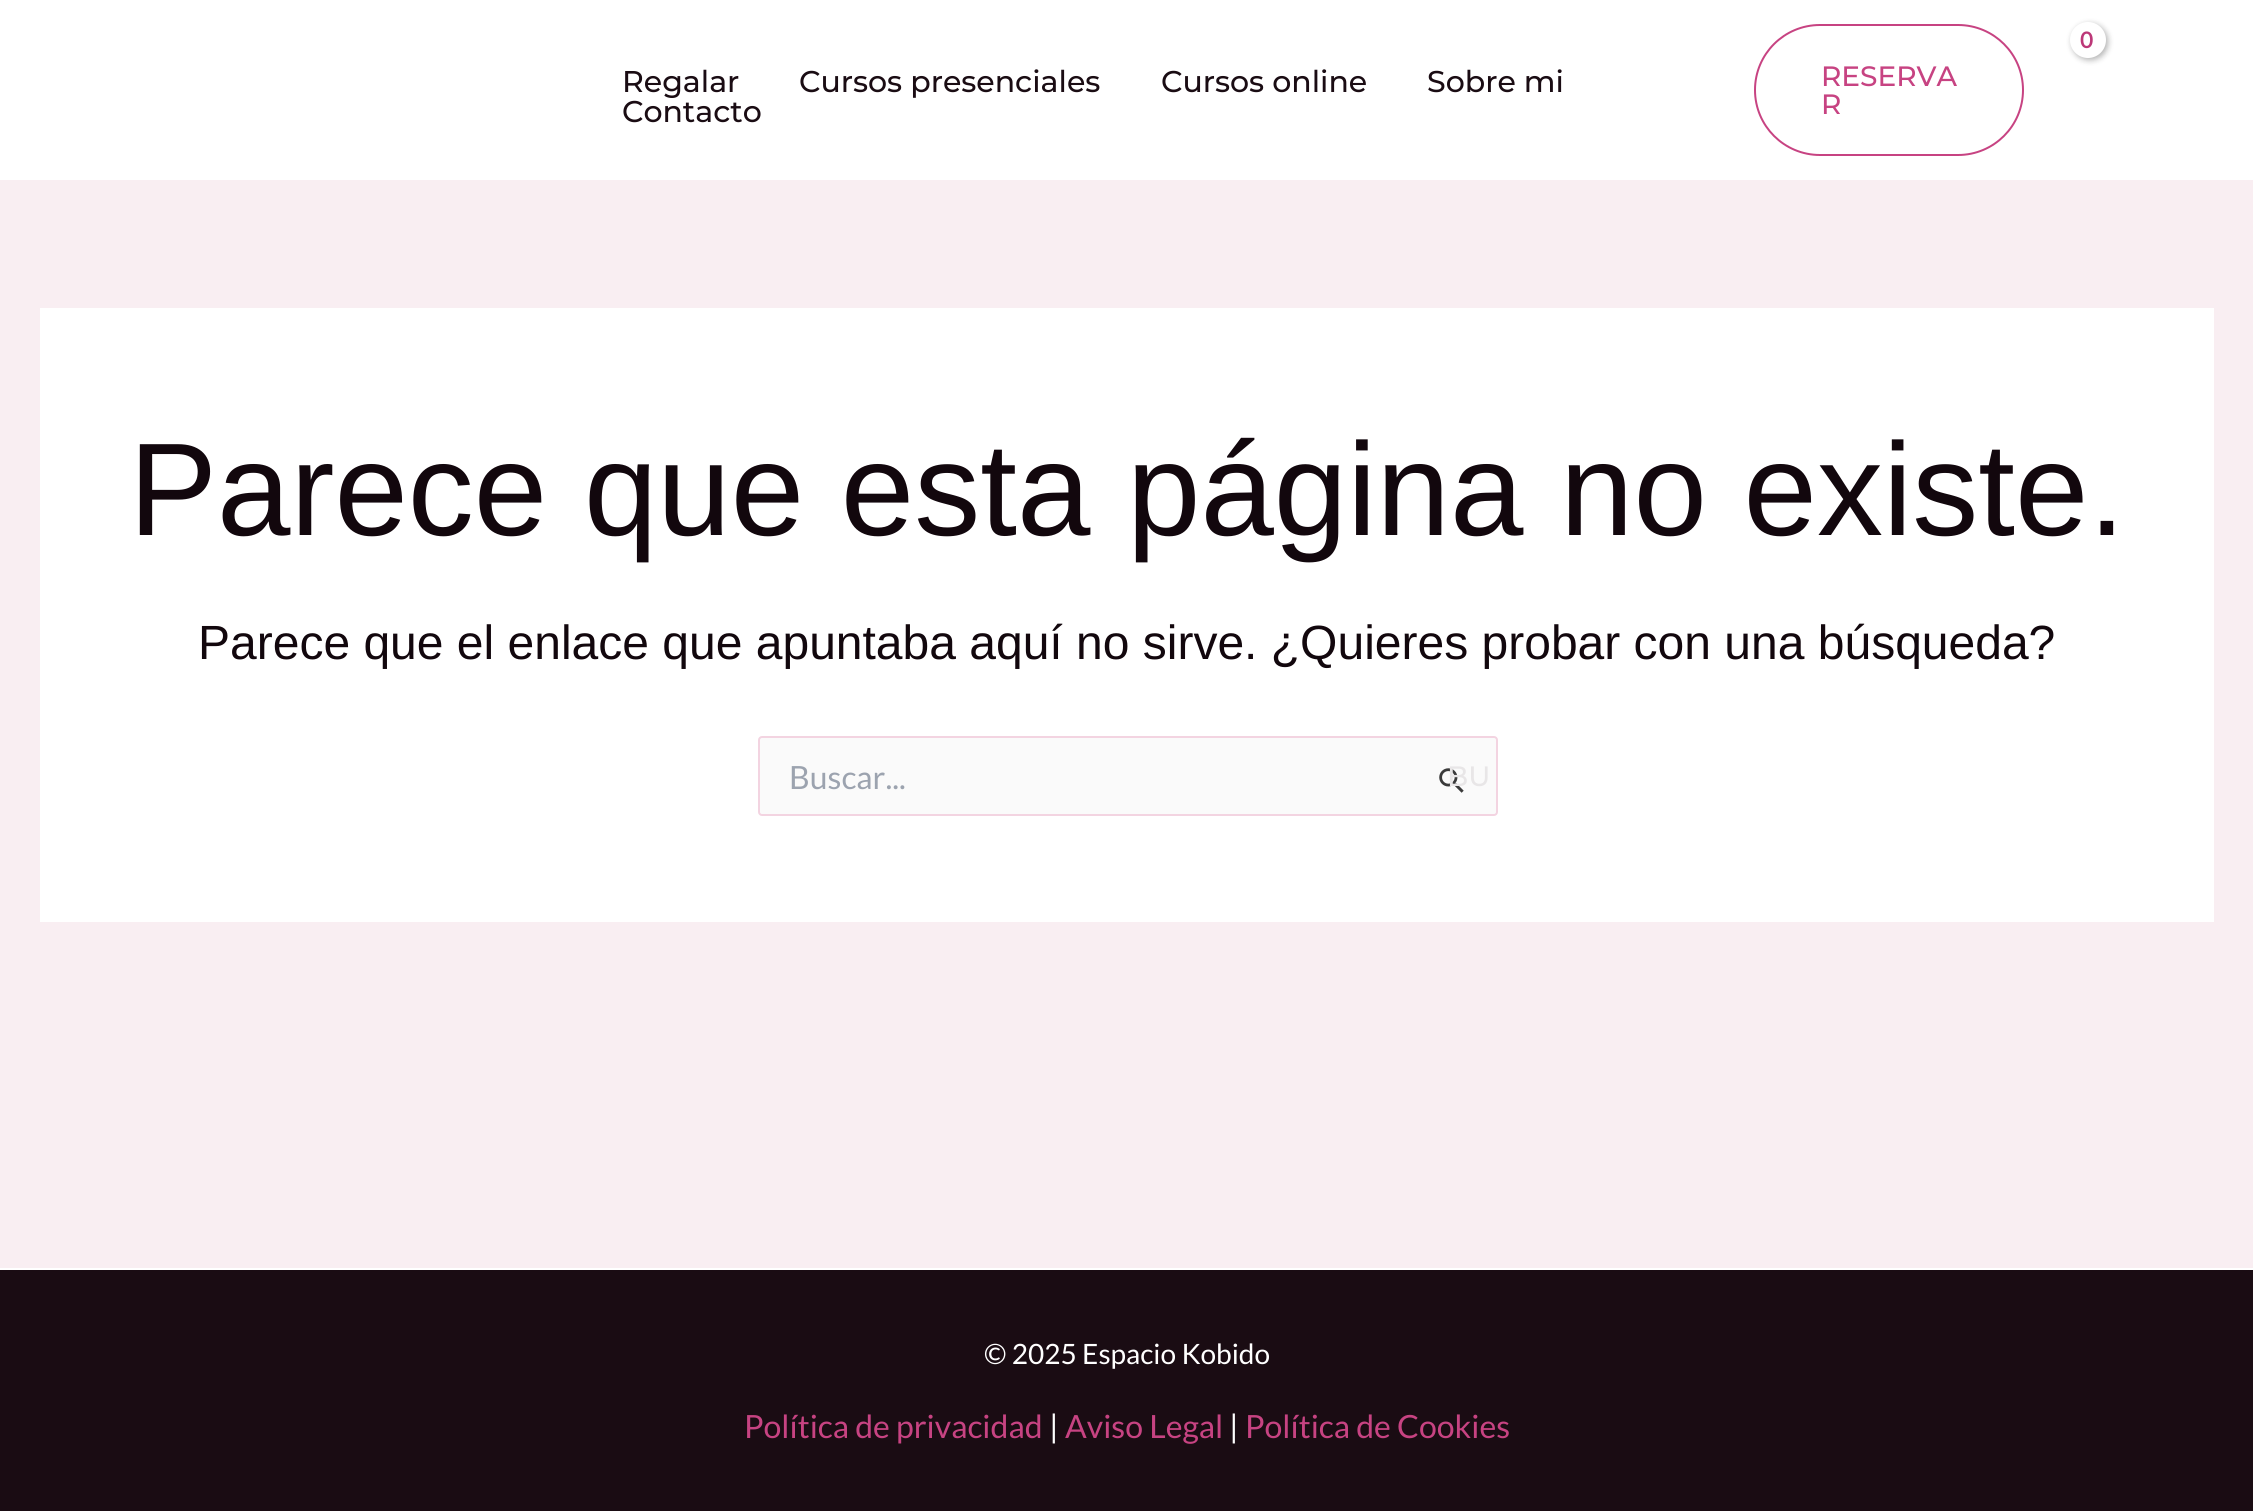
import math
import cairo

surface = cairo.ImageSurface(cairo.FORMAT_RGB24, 2253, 1511)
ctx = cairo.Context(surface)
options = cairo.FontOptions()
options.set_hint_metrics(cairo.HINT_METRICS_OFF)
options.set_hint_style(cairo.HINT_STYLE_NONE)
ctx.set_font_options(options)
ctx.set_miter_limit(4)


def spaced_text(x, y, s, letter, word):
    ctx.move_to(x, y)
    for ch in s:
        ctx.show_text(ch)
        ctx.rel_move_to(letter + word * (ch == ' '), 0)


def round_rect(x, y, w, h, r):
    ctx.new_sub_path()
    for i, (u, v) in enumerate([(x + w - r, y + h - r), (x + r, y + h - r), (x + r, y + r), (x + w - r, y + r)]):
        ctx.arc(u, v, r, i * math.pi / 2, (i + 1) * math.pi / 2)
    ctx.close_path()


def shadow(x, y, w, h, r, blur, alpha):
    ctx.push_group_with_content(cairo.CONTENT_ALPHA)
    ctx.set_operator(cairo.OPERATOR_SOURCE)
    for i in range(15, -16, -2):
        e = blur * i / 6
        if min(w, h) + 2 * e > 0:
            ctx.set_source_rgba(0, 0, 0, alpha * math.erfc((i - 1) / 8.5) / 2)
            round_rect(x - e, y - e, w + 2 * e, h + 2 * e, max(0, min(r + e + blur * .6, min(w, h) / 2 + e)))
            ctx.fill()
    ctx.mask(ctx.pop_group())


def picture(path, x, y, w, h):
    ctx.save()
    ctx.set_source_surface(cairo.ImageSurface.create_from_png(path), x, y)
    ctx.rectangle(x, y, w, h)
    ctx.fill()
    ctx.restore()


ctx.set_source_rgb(0.973, 0.933, 0.949)
ctx.paint()
ctx.set_source_rgb(1, 1, 1)
ctx.rectangle(0, 0, 2253, 180)
ctx.fill()
ctx.set_source_rgb(0, 0, 0)
shadow(2072, 24, 36, 36, 18, 3, 0.3)
ctx.set_source_rgb(1, 1, 1)
ctx.arc(2088, 40, 18, 0, 2 * math.pi)
ctx.fill()
ctx.select_font_face("Lato", cairo.FONT_SLANT_NORMAL, cairo.FONT_WEIGHT_BOLD)
ctx.set_font_size(22)
ctx.set_source_rgb(0.737, 0.22, 0.471)
spaced_text(2080, 48, "0", -1, 0)
ctx.select_font_face("Montserrat Thin")
ctx.set_font_size(30)
ctx.set_source_rgb(0.102, 0.047, 0.075)
ctx.move_to(622, 92)
ctx.show_text("Regalar")
ctx.move_to(799, 92)
ctx.show_text("Cursos presenciales")
ctx.move_to(1161, 92)
ctx.show_text("Cursos online")
ctx.move_to(1427, 92)
ctx.show_text("Sobre mi")
ctx.move_to(622, 122)
ctx.show_text("Contacto")
round_rect(1755, 25, 268, 130, 65)
ctx.set_source_rgb(0.78, 0.263, 0.51)
ctx.stroke()
ctx.set_font_size(28)
ctx.move_to(1821, 86)
ctx.show_text("RESERVA")
ctx.move_to(1821, 114)
ctx.show_text("R")
ctx.set_source_rgb(1, 1, 1)
ctx.rectangle(40, 308, 2174, 614)
ctx.fill()
ctx.select_font_face("Liberation Sans")
ctx.set_font_size(132)
ctx.set_source_rgb(0.071, 0.031, 0.051)
ctx.move_to(129, 535)
ctx.show_text("Parece que esta página no existe.")
ctx.set_font_size(48)
ctx.move_to(198, 659)
ctx.show_text("Parece que el enlace que apuntaba aquí no sirve. ¿Quieres probar con una búsqueda?")
ctx.set_source_rgb(0.98, 0.98, 0.98)
round_rect(759, 737, 738, 78, 3)
ctx.fill_preserve()
ctx.set_source_rgb(0.953, 0.831, 0.882)
ctx.stroke()
ctx.select_font_face("Lato")
ctx.set_font_size(32)
ctx.set_source_rgb(0.612, 0.639, 0.686)
ctx.move_to(789, 789)
ctx.show_text("Buscar...")
picture("img1.png", 1439, 768, 25, 25)
ctx.select_font_face("Montserrat Thin")
ctx.set_font_size(28)
ctx.set_source_rgb(0.91, 0.902, 0.906)
ctx.move_to(1447, 786)
ctx.show_text("BU")
ctx.set_source_rgb(0.102, 0.047, 0.075)
ctx.rectangle(0, 1270, 2253, 241)
ctx.fill()
ctx.set_source_rgb(1, 1, 1)
ctx.rectangle(0, 1268, 2253, 2)
ctx.fill()
ctx.select_font_face("Lato")
ctx.move_to(984, 1364)
ctx.show_text("© 2025 Espacio Kobido")
ctx.set_font_size(32)
ctx.set_source_rgb(0.78, 0.263, 0.51)
ctx.move_to(744, 1438)
ctx.show_text("Política de privacidad")
ctx.set_source_rgb(1, 1, 1)
ctx.move_to(1049, 1438)
ctx.show_text("|")
ctx.set_source_rgb(0.78, 0.263, 0.51)
ctx.move_to(1065, 1438)
ctx.show_text("Aviso Legal")
ctx.set_source_rgb(1, 1, 1)
ctx.move_to(1229, 1438)
ctx.show_text("|")
ctx.set_source_rgb(0.78, 0.263, 0.51)
ctx.move_to(1245, 1438)
ctx.show_text("Política de Cookies")
surface.write_to_png("page.png")
